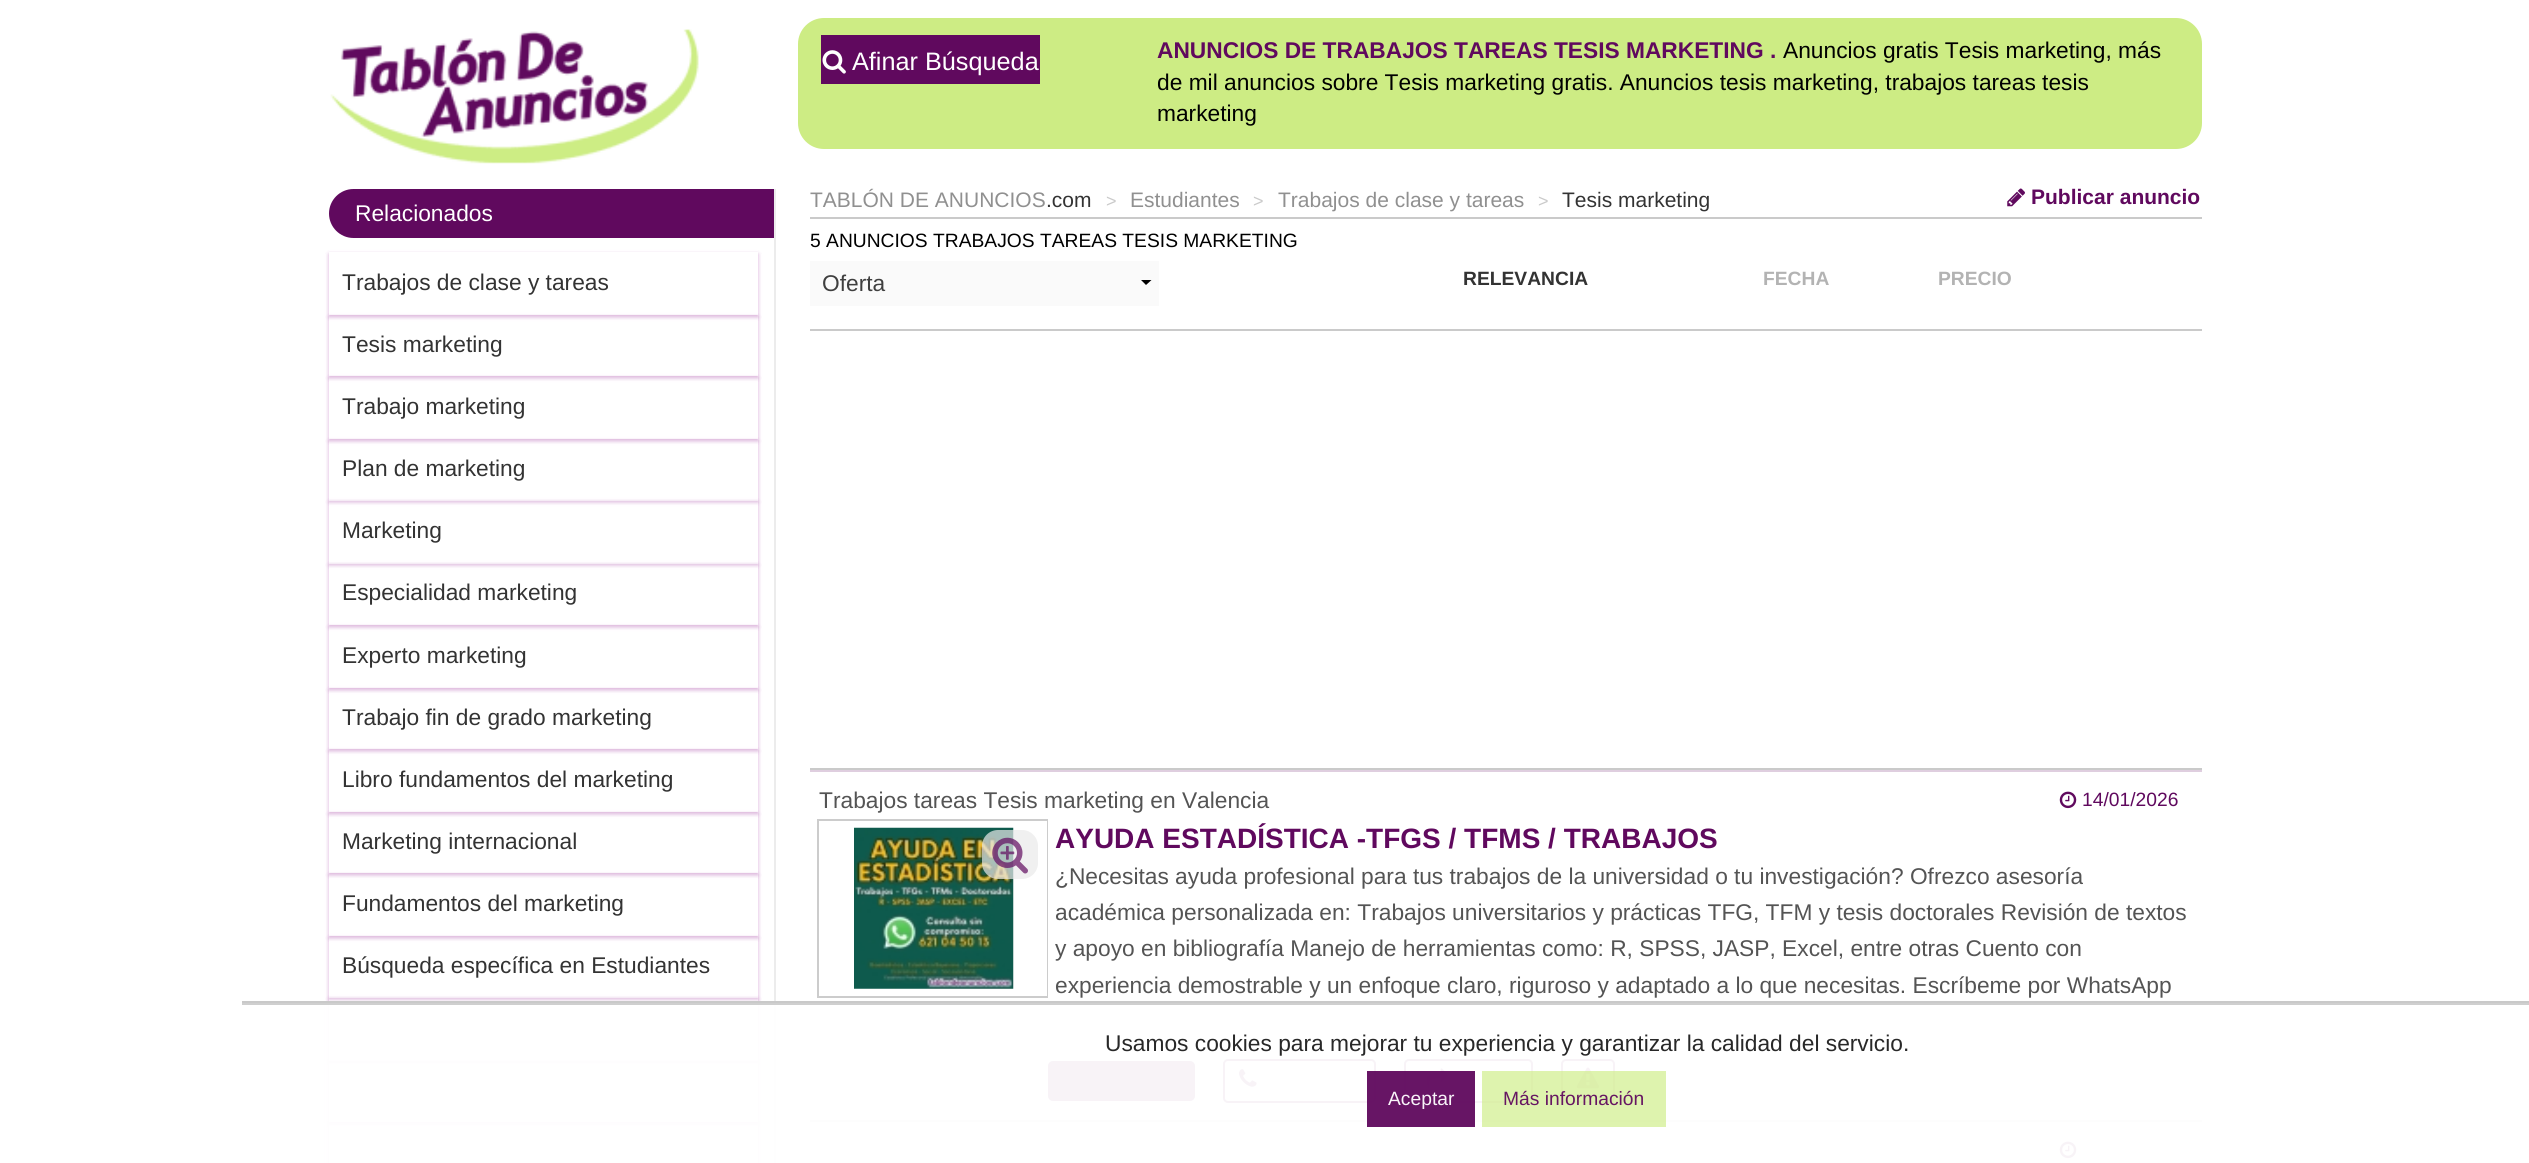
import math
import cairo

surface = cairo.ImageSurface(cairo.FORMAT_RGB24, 2529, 1163)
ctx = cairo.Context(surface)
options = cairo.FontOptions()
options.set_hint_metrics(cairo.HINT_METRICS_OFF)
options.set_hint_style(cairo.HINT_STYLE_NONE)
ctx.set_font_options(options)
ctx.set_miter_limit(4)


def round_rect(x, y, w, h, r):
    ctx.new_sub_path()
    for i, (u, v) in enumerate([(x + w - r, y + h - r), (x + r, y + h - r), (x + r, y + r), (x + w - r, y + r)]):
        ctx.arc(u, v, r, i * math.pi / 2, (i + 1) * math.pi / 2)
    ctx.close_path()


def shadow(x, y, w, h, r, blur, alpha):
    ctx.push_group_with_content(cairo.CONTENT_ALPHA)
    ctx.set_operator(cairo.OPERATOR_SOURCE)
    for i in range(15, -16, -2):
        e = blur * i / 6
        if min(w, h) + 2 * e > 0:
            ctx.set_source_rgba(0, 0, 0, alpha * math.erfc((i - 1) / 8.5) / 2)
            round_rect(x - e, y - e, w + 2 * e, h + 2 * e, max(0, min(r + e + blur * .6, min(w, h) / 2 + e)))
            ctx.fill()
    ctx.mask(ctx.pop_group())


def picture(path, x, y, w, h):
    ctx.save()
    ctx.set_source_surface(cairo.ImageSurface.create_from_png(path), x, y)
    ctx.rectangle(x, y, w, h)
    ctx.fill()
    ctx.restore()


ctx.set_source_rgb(1, 1, 1)
ctx.paint()
picture("img1.png", 330, 29, 369, 135)
ctx.set_source_rgb(0.804, 0.925, 0.518)
round_rect(798, 18, 1404, 131, 26)
ctx.fill()
ctx.set_source_rgb(0.376, 0.039, 0.369)
ctx.rectangle(821, 35, 219, 49)
ctx.fill()
picture("img2.png", 822, 50, 24, 24)
ctx.select_font_face("Liberation Sans")
ctx.set_font_size(25.25)
ctx.set_source_rgb(1, 1, 1)
ctx.move_to(852, 70)
ctx.show_text("Afinar Búsqueda")
ctx.select_font_face("Liberation Sans", cairo.FONT_SLANT_NORMAL, cairo.FONT_WEIGHT_BOLD)
ctx.set_font_size(22.75)
ctx.set_source_rgb(0.376, 0.039, 0.369)
ctx.move_to(1157, 58)
ctx.show_text("ANUNCIOS DE TRABAJOS TAREAS TESIS MARKETING .")
ctx.select_font_face("Liberation Sans")
ctx.set_source_rgb(0, 0, 0)
ctx.move_to(1783, 58)
ctx.show_text("Anuncios gratis Tesis marketing, más")
ctx.move_to(1157, 90)
ctx.show_text("de mil anuncios sobre Tesis marketing gratis. Anuncios tesis marketing, trabajos tareas tesis")
ctx.move_to(1157, 121)
ctx.show_text("marketing")
ctx.set_source_rgb(0.376, 0.039, 0.369)
ctx.new_path()
ctx.move_to(353.5, 189)
ctx.line_to(775, 189)
ctx.line_to(775, 238)
ctx.line_to(353.5, 238)
ctx.curve_to(340, 238, 329, 227, 329, 213.5)
ctx.curve_to(329, 200, 340, 189, 353.5, 189)
ctx.close_path()
ctx.fill()
ctx.set_source_rgb(1, 1, 1)
ctx.move_to(355, 221)
ctx.show_text("Relacionados")
ctx.save()
ctx.set_fill_rule(cairo.FILL_RULE_EVEN_ODD)
ctx.new_path()
ctx.move_to(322, 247)
ctx.line_to(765, 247)
ctx.line_to(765, 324)
ctx.line_to(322, 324)
ctx.close_path()
ctx.move_to(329, 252)
ctx.line_to(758, 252)
ctx.line_to(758, 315)
ctx.line_to(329, 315)
ctx.close_path()
ctx.clip()
ctx.set_source_rgb(0.557, 0.059, 0.545)
shadow(329, 254, 429, 63, 0, 2, 0.24)
ctx.restore()
ctx.save()
ctx.set_fill_rule(cairo.FILL_RULE_EVEN_ODD)
ctx.new_path()
ctx.move_to(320, 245)
ctx.line_to(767, 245)
ctx.line_to(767, 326)
ctx.line_to(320, 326)
ctx.close_path()
ctx.move_to(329, 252)
ctx.line_to(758, 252)
ctx.line_to(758, 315)
ctx.line_to(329, 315)
ctx.close_path()
ctx.clip()
ctx.set_source_rgb(0.557, 0.059, 0.545)
shadow(329, 254, 429, 63, 0, 2.5, 0.12)
ctx.restore()
ctx.set_source_rgb(0.2, 0.2, 0.2)
ctx.move_to(342, 290)
ctx.show_text("Trabajos de clase y tareas")
ctx.save()
ctx.set_fill_rule(cairo.FILL_RULE_EVEN_ODD)
ctx.new_path()
ctx.move_to(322, 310)
ctx.line_to(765, 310)
ctx.line_to(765, 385)
ctx.line_to(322, 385)
ctx.close_path()
ctx.move_to(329, 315)
ctx.line_to(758, 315)
ctx.line_to(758, 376)
ctx.line_to(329, 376)
ctx.close_path()
ctx.clip()
ctx.set_source_rgb(0.557, 0.059, 0.545)
shadow(329, 317, 429, 61, 0, 2, 0.24)
ctx.restore()
ctx.save()
ctx.set_fill_rule(cairo.FILL_RULE_EVEN_ODD)
ctx.new_path()
ctx.move_to(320, 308)
ctx.line_to(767, 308)
ctx.line_to(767, 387)
ctx.line_to(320, 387)
ctx.close_path()
ctx.move_to(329, 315)
ctx.line_to(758, 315)
ctx.line_to(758, 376)
ctx.line_to(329, 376)
ctx.close_path()
ctx.clip()
ctx.set_source_rgb(0.557, 0.059, 0.545)
shadow(329, 317, 429, 61, 0, 2.5, 0.12)
ctx.restore()
ctx.move_to(342, 352)
ctx.show_text("Tesis marketing")
ctx.save()
ctx.set_fill_rule(cairo.FILL_RULE_EVEN_ODD)
ctx.new_path()
ctx.move_to(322, 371)
ctx.line_to(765, 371)
ctx.line_to(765, 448)
ctx.line_to(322, 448)
ctx.close_path()
ctx.move_to(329, 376)
ctx.line_to(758, 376)
ctx.line_to(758, 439)
ctx.line_to(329, 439)
ctx.close_path()
ctx.clip()
ctx.set_source_rgb(0.557, 0.059, 0.545)
shadow(329, 378, 429, 63, 0, 2, 0.24)
ctx.restore()
ctx.save()
ctx.set_fill_rule(cairo.FILL_RULE_EVEN_ODD)
ctx.new_path()
ctx.move_to(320, 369)
ctx.line_to(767, 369)
ctx.line_to(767, 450)
ctx.line_to(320, 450)
ctx.close_path()
ctx.move_to(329, 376)
ctx.line_to(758, 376)
ctx.line_to(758, 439)
ctx.line_to(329, 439)
ctx.close_path()
ctx.clip()
ctx.set_source_rgb(0.557, 0.059, 0.545)
shadow(329, 378, 429, 63, 0, 2.5, 0.12)
ctx.restore()
ctx.move_to(342, 414)
ctx.show_text("Trabajo marketing")
ctx.save()
ctx.set_fill_rule(cairo.FILL_RULE_EVEN_ODD)
ctx.new_path()
ctx.move_to(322, 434)
ctx.line_to(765, 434)
ctx.line_to(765, 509)
ctx.line_to(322, 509)
ctx.close_path()
ctx.move_to(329, 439)
ctx.line_to(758, 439)
ctx.line_to(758, 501)
ctx.line_to(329, 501)
ctx.close_path()
ctx.clip()
ctx.set_source_rgb(0.557, 0.059, 0.545)
shadow(329, 441, 429, 61, 0, 2, 0.24)
ctx.restore()
ctx.save()
ctx.set_fill_rule(cairo.FILL_RULE_EVEN_ODD)
ctx.new_path()
ctx.move_to(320, 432)
ctx.line_to(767, 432)
ctx.line_to(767, 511)
ctx.line_to(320, 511)
ctx.close_path()
ctx.move_to(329, 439)
ctx.line_to(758, 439)
ctx.line_to(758, 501)
ctx.line_to(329, 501)
ctx.close_path()
ctx.clip()
ctx.set_source_rgb(0.557, 0.059, 0.545)
shadow(329, 441, 429, 61, 0, 2.5, 0.12)
ctx.restore()
ctx.move_to(342, 476)
ctx.show_text("Plan de marketing")
ctx.save()
ctx.set_fill_rule(cairo.FILL_RULE_EVEN_ODD)
ctx.new_path()
ctx.move_to(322, 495)
ctx.line_to(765, 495)
ctx.line_to(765, 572)
ctx.line_to(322, 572)
ctx.close_path()
ctx.move_to(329, 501)
ctx.line_to(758, 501)
ctx.line_to(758, 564)
ctx.line_to(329, 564)
ctx.close_path()
ctx.clip()
ctx.set_source_rgb(0.557, 0.059, 0.545)
shadow(329, 502, 429, 63, 0, 2, 0.24)
ctx.restore()
ctx.save()
ctx.set_fill_rule(cairo.FILL_RULE_EVEN_ODD)
ctx.new_path()
ctx.move_to(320, 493)
ctx.line_to(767, 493)
ctx.line_to(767, 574)
ctx.line_to(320, 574)
ctx.close_path()
ctx.move_to(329, 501)
ctx.line_to(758, 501)
ctx.line_to(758, 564)
ctx.line_to(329, 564)
ctx.close_path()
ctx.clip()
ctx.set_source_rgb(0.557, 0.059, 0.545)
shadow(329, 502, 429, 63, 0, 2.5, 0.12)
ctx.restore()
ctx.move_to(342, 538)
ctx.show_text("Marketing")
ctx.save()
ctx.set_fill_rule(cairo.FILL_RULE_EVEN_ODD)
ctx.new_path()
ctx.move_to(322, 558)
ctx.line_to(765, 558)
ctx.line_to(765, 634)
ctx.line_to(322, 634)
ctx.close_path()
ctx.move_to(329, 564)
ctx.line_to(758, 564)
ctx.line_to(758, 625)
ctx.line_to(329, 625)
ctx.close_path()
ctx.clip()
ctx.set_source_rgb(0.557, 0.059, 0.545)
shadow(329, 565, 429, 62, 0, 2, 0.24)
ctx.restore()
ctx.save()
ctx.set_fill_rule(cairo.FILL_RULE_EVEN_ODD)
ctx.new_path()
ctx.move_to(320, 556)
ctx.line_to(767, 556)
ctx.line_to(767, 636)
ctx.line_to(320, 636)
ctx.close_path()
ctx.move_to(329, 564)
ctx.line_to(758, 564)
ctx.line_to(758, 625)
ctx.line_to(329, 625)
ctx.close_path()
ctx.clip()
ctx.set_source_rgb(0.557, 0.059, 0.545)
shadow(329, 565, 429, 62, 0, 2.5, 0.12)
ctx.restore()
ctx.move_to(342, 600)
ctx.show_text("Especialidad marketing")
ctx.save()
ctx.set_fill_rule(cairo.FILL_RULE_EVEN_ODD)
ctx.new_path()
ctx.move_to(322, 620)
ctx.line_to(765, 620)
ctx.line_to(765, 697)
ctx.line_to(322, 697)
ctx.close_path()
ctx.move_to(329, 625)
ctx.line_to(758, 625)
ctx.line_to(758, 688)
ctx.line_to(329, 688)
ctx.close_path()
ctx.clip()
ctx.set_source_rgb(0.557, 0.059, 0.545)
shadow(329, 627, 429, 63, 0, 2, 0.24)
ctx.restore()
ctx.save()
ctx.set_fill_rule(cairo.FILL_RULE_EVEN_ODD)
ctx.new_path()
ctx.move_to(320, 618)
ctx.line_to(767, 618)
ctx.line_to(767, 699)
ctx.line_to(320, 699)
ctx.close_path()
ctx.move_to(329, 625)
ctx.line_to(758, 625)
ctx.line_to(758, 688)
ctx.line_to(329, 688)
ctx.close_path()
ctx.clip()
ctx.set_source_rgb(0.557, 0.059, 0.545)
shadow(329, 627, 429, 63, 0, 2.5, 0.12)
ctx.restore()
ctx.move_to(342, 663)
ctx.show_text("Experto marketing")
ctx.save()
ctx.set_fill_rule(cairo.FILL_RULE_EVEN_ODD)
ctx.new_path()
ctx.move_to(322, 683)
ctx.line_to(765, 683)
ctx.line_to(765, 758)
ctx.line_to(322, 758)
ctx.close_path()
ctx.move_to(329, 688)
ctx.line_to(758, 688)
ctx.line_to(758, 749)
ctx.line_to(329, 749)
ctx.close_path()
ctx.clip()
ctx.set_source_rgb(0.557, 0.059, 0.545)
shadow(329, 690, 429, 61, 0, 2, 0.24)
ctx.restore()
ctx.save()
ctx.set_fill_rule(cairo.FILL_RULE_EVEN_ODD)
ctx.new_path()
ctx.move_to(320, 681)
ctx.line_to(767, 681)
ctx.line_to(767, 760)
ctx.line_to(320, 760)
ctx.close_path()
ctx.move_to(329, 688)
ctx.line_to(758, 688)
ctx.line_to(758, 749)
ctx.line_to(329, 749)
ctx.close_path()
ctx.clip()
ctx.set_source_rgb(0.557, 0.059, 0.545)
shadow(329, 690, 429, 61, 0, 2.5, 0.12)
ctx.restore()
ctx.move_to(342, 725)
ctx.show_text("Trabajo fin de grado marketing")
ctx.save()
ctx.set_fill_rule(cairo.FILL_RULE_EVEN_ODD)
ctx.new_path()
ctx.move_to(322, 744)
ctx.line_to(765, 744)
ctx.line_to(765, 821)
ctx.line_to(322, 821)
ctx.close_path()
ctx.move_to(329, 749)
ctx.line_to(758, 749)
ctx.line_to(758, 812)
ctx.line_to(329, 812)
ctx.close_path()
ctx.clip()
ctx.set_source_rgb(0.557, 0.059, 0.545)
shadow(329, 751, 429, 63, 0, 2, 0.24)
ctx.restore()
ctx.save()
ctx.set_fill_rule(cairo.FILL_RULE_EVEN_ODD)
ctx.new_path()
ctx.move_to(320, 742)
ctx.line_to(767, 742)
ctx.line_to(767, 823)
ctx.line_to(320, 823)
ctx.close_path()
ctx.move_to(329, 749)
ctx.line_to(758, 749)
ctx.line_to(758, 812)
ctx.line_to(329, 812)
ctx.close_path()
ctx.clip()
ctx.set_source_rgb(0.557, 0.059, 0.545)
shadow(329, 751, 429, 63, 0, 2.5, 0.12)
ctx.restore()
ctx.move_to(342, 787)
ctx.show_text("Libro fundamentos del marketing")
ctx.save()
ctx.set_fill_rule(cairo.FILL_RULE_EVEN_ODD)
ctx.new_path()
ctx.move_to(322, 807)
ctx.line_to(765, 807)
ctx.line_to(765, 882)
ctx.line_to(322, 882)
ctx.close_path()
ctx.move_to(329, 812)
ctx.line_to(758, 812)
ctx.line_to(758, 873)
ctx.line_to(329, 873)
ctx.close_path()
ctx.clip()
ctx.set_source_rgb(0.557, 0.059, 0.545)
shadow(329, 814, 429, 61, 0, 2, 0.24)
ctx.restore()
ctx.save()
ctx.set_fill_rule(cairo.FILL_RULE_EVEN_ODD)
ctx.new_path()
ctx.move_to(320, 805)
ctx.line_to(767, 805)
ctx.line_to(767, 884)
ctx.line_to(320, 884)
ctx.close_path()
ctx.move_to(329, 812)
ctx.line_to(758, 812)
ctx.line_to(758, 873)
ctx.line_to(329, 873)
ctx.close_path()
ctx.clip()
ctx.set_source_rgb(0.557, 0.059, 0.545)
shadow(329, 814, 429, 61, 0, 2.5, 0.12)
ctx.restore()
ctx.move_to(342, 849)
ctx.show_text("Marketing internacional")
ctx.save()
ctx.set_fill_rule(cairo.FILL_RULE_EVEN_ODD)
ctx.new_path()
ctx.move_to(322, 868)
ctx.line_to(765, 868)
ctx.line_to(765, 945)
ctx.line_to(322, 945)
ctx.close_path()
ctx.move_to(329, 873)
ctx.line_to(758, 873)
ctx.line_to(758, 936)
ctx.line_to(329, 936)
ctx.close_path()
ctx.clip()
ctx.set_source_rgb(0.557, 0.059, 0.545)
shadow(329, 875, 429, 63, 0, 2, 0.24)
ctx.restore()
ctx.save()
ctx.set_fill_rule(cairo.FILL_RULE_EVEN_ODD)
ctx.new_path()
ctx.move_to(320, 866)
ctx.line_to(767, 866)
ctx.line_to(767, 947)
ctx.line_to(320, 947)
ctx.close_path()
ctx.move_to(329, 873)
ctx.line_to(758, 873)
ctx.line_to(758, 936)
ctx.line_to(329, 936)
ctx.close_path()
ctx.clip()
ctx.set_source_rgb(0.557, 0.059, 0.545)
shadow(329, 875, 429, 63, 0, 2.5, 0.12)
ctx.restore()
ctx.move_to(342, 911)
ctx.show_text("Fundamentos del marketing")
ctx.save()
ctx.set_fill_rule(cairo.FILL_RULE_EVEN_ODD)
ctx.new_path()
ctx.move_to(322, 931)
ctx.line_to(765, 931)
ctx.line_to(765, 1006)
ctx.line_to(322, 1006)
ctx.close_path()
ctx.move_to(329, 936)
ctx.line_to(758, 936)
ctx.line_to(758, 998)
ctx.line_to(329, 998)
ctx.close_path()
ctx.clip()
ctx.set_source_rgb(0.557, 0.059, 0.545)
shadow(329, 938, 429, 61, 0, 2, 0.24)
ctx.restore()
ctx.save()
ctx.set_fill_rule(cairo.FILL_RULE_EVEN_ODD)
ctx.new_path()
ctx.move_to(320, 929)
ctx.line_to(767, 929)
ctx.line_to(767, 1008)
ctx.line_to(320, 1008)
ctx.close_path()
ctx.move_to(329, 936)
ctx.line_to(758, 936)
ctx.line_to(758, 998)
ctx.line_to(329, 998)
ctx.close_path()
ctx.clip()
ctx.set_source_rgb(0.557, 0.059, 0.545)
shadow(329, 938, 429, 61, 0, 2.5, 0.12)
ctx.restore()
ctx.move_to(342, 973)
ctx.show_text("Búsqueda específica en Estudiantes")
ctx.save()
ctx.set_fill_rule(cairo.FILL_RULE_EVEN_ODD)
ctx.new_path()
ctx.move_to(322, 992)
ctx.line_to(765, 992)
ctx.line_to(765, 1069)
ctx.line_to(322, 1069)
ctx.close_path()
ctx.move_to(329, 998)
ctx.line_to(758, 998)
ctx.line_to(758, 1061)
ctx.line_to(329, 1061)
ctx.close_path()
ctx.clip()
ctx.set_source_rgb(0.557, 0.059, 0.545)
shadow(329, 999, 429, 63, 0, 2, 0.24)
ctx.restore()
ctx.save()
ctx.set_fill_rule(cairo.FILL_RULE_EVEN_ODD)
ctx.new_path()
ctx.move_to(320, 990)
ctx.line_to(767, 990)
ctx.line_to(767, 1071)
ctx.line_to(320, 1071)
ctx.close_path()
ctx.move_to(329, 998)
ctx.line_to(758, 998)
ctx.line_to(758, 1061)
ctx.line_to(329, 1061)
ctx.close_path()
ctx.clip()
ctx.set_source_rgb(0.557, 0.059, 0.545)
shadow(329, 999, 429, 63, 0, 2.5, 0.12)
ctx.restore()
ctx.save()
ctx.set_fill_rule(cairo.FILL_RULE_EVEN_ODD)
ctx.new_path()
ctx.move_to(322, 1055)
ctx.line_to(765, 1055)
ctx.line_to(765, 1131)
ctx.line_to(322, 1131)
ctx.close_path()
ctx.move_to(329, 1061)
ctx.line_to(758, 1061)
ctx.line_to(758, 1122)
ctx.line_to(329, 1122)
ctx.close_path()
ctx.clip()
ctx.set_source_rgb(0.557, 0.059, 0.545)
shadow(329, 1062, 429, 62, 0, 2, 0.24)
ctx.restore()
ctx.save()
ctx.set_fill_rule(cairo.FILL_RULE_EVEN_ODD)
ctx.new_path()
ctx.move_to(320, 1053)
ctx.line_to(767, 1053)
ctx.line_to(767, 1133)
ctx.line_to(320, 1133)
ctx.close_path()
ctx.move_to(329, 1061)
ctx.line_to(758, 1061)
ctx.line_to(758, 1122)
ctx.line_to(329, 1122)
ctx.close_path()
ctx.clip()
ctx.set_source_rgb(0.557, 0.059, 0.545)
shadow(329, 1062, 429, 62, 0, 2.5, 0.12)
ctx.restore()
ctx.save()
ctx.set_fill_rule(cairo.FILL_RULE_EVEN_ODD)
ctx.new_path()
ctx.move_to(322, 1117)
ctx.line_to(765, 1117)
ctx.line_to(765, 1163)
ctx.line_to(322, 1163)
ctx.close_path()
ctx.move_to(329, 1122)
ctx.line_to(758, 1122)
ctx.line_to(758, 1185)
ctx.line_to(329, 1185)
ctx.close_path()
ctx.clip()
ctx.set_source_rgb(0.557, 0.059, 0.545)
shadow(329, 1124, 429, 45, 0, 2, 0.24)
ctx.restore()
ctx.save()
ctx.set_fill_rule(cairo.FILL_RULE_EVEN_ODD)
ctx.new_path()
ctx.move_to(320, 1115)
ctx.line_to(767, 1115)
ctx.line_to(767, 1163)
ctx.line_to(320, 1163)
ctx.close_path()
ctx.move_to(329, 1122)
ctx.line_to(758, 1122)
ctx.line_to(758, 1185)
ctx.line_to(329, 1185)
ctx.close_path()
ctx.clip()
ctx.set_source_rgb(0.557, 0.059, 0.545)
shadow(329, 1124, 429, 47, 0, 2.5, 0.12)
ctx.restore()
ctx.set_source_rgb(0.922, 0.922, 0.922)
ctx.rectangle(774, 189, 2, 974)
ctx.fill()
ctx.set_font_size(21)
ctx.set_source_rgb(0.565, 0.565, 0.565)
ctx.move_to(810, 207)
ctx.show_text("TABLÓN DE ANUNCIOS")
ctx.set_source_rgb(0.2, 0.2, 0.2)
ctx.move_to(1046, 207)
ctx.show_text(".com")
ctx.set_font_size(18)
ctx.set_source_rgb(0.792, 0.792, 0.792)
ctx.move_to(1106, 207)
ctx.show_text(">")
ctx.set_font_size(21)
ctx.set_source_rgb(0.565, 0.565, 0.565)
ctx.move_to(1130, 207)
ctx.show_text("Estudiantes")
ctx.set_font_size(18)
ctx.set_source_rgb(0.792, 0.792, 0.792)
ctx.move_to(1253, 207)
ctx.show_text(">")
ctx.set_font_size(21)
ctx.set_source_rgb(0.565, 0.565, 0.565)
ctx.move_to(1278, 207)
ctx.show_text("Trabajos de clase y tareas")
ctx.set_font_size(18)
ctx.set_source_rgb(0.792, 0.792, 0.792)
ctx.move_to(1538, 207)
ctx.show_text(">")
ctx.set_font_size(21)
ctx.set_source_rgb(0.2, 0.2, 0.2)
ctx.move_to(1562, 207)
ctx.show_text("Tesis marketing")
picture("img3.png", 2007, 188, 18, 19)
ctx.select_font_face("Liberation Sans", cairo.FONT_SLANT_NORMAL, cairo.FONT_WEIGHT_BOLD)
ctx.set_source_rgb(0.376, 0.039, 0.369)
ctx.move_to(2031, 204)
ctx.show_text("Publicar anuncio")
ctx.set_source_rgb(0.792, 0.792, 0.792)
ctx.rectangle(810, 217, 1392, 2)
ctx.fill()
ctx.select_font_face("Liberation Sans")
ctx.set_font_size(19.25)
ctx.set_source_rgb(0, 0, 0)
ctx.move_to(810, 247)
ctx.show_text("5 ANUNCIOS TRABAJOS TAREAS TESIS MARKETING")
ctx.set_source_rgb(0.98, 0.98, 0.98)
ctx.rectangle(810, 261, 349, 45)
ctx.fill()
ctx.set_source_rgb(0, 0, 0)
ctx.new_path()
ctx.move_to(1151.5, 280)
ctx.line_to(1146, 285)
ctx.line_to(1141, 280)
ctx.close_path()
ctx.fill()
ctx.save()
ctx.rectangle(823, 271, 315, 23)
ctx.clip()
ctx.set_font_size(22.75)
ctx.set_source_rgb(0.247, 0.247, 0.247)
ctx.move_to(822, 291)
ctx.show_text("Oferta")
ctx.restore()
ctx.select_font_face("Liberation Sans", cairo.FONT_SLANT_NORMAL, cairo.FONT_WEIGHT_BOLD)
ctx.set_source_rgb(0.2, 0.2, 0.2)
ctx.move_to(1463, 285)
ctx.show_text("RELEVANCIA")
ctx.set_source_rgb(0.702, 0.702, 0.702)
ctx.move_to(1763, 285)
ctx.show_text("FECHA")
ctx.move_to(1938, 285)
ctx.show_text("PRECIO")
ctx.set_source_rgb(0.792, 0.792, 0.792)
ctx.rectangle(810, 329, 1392, 2)
ctx.fill()
ctx.rectangle(810, 768, 1392, 2)
ctx.fill()
ctx.set_source_rgb(0.875, 0.808, 0.875)
ctx.rectangle(810, 770, 1392, 2)
ctx.fill()
ctx.select_font_face("Liberation Sans")
ctx.set_font_size(22.75)
ctx.set_source_rgb(0.329, 0.329, 0.329)
ctx.move_to(819, 808)
ctx.show_text("Trabajos tareas Tesis marketing en Valencia")
picture("img4.png", 2059, 791, 18, 18)
ctx.set_font_size(19.25)
ctx.set_source_rgb(0.376, 0.039, 0.369)
ctx.move_to(2082, 806)
ctx.show_text("14/01/2026")
ctx.rectangle(818, 820, 229, 177)
ctx.set_source_rgb(0.8, 0.8, 0.8)
ctx.stroke()
ctx.set_source_rgb(1, 1, 1)
ctx.rectangle(1046, 821, 1, 175)
ctx.fill()
picture("img5.png", 854, 827, 160, 162)
ctx.set_source_rgba(0.918, 0.918, 0.918, 0.7)
round_rect(982, 830, 56, 49, 16)
ctx.fill()
picture("img6.png", 992, 837, 36, 37)
ctx.select_font_face("Liberation Sans", cairo.FONT_SLANT_NORMAL, cairo.FONT_WEIGHT_BOLD)
ctx.set_font_size(28)
ctx.set_source_rgb(0.376, 0.039, 0.369)
ctx.move_to(1055, 848)
ctx.show_text("AYUDA ESTADÍSTICA -TFGS / TFMS / TRABAJOS")
ctx.select_font_face("Liberation Sans")
ctx.set_font_size(22.75)
ctx.set_source_rgb(0.329, 0.329, 0.329)
ctx.move_to(1055, 884)
ctx.show_text("¿Necesitas ayuda profesional para tus trabajos de la universidad o tu investigación? Ofrezco asesoría")
ctx.move_to(1055, 920)
ctx.show_text("académica personalizada en: Trabajos universitarios y prácticas TFG, TFM y tesis doctorales Revisión de textos")
ctx.move_to(1055, 956)
ctx.show_text("y apoyo en bibliografía Manejo de herramientas como: R, SPSS, JASP, Excel, entre otras Cuento con")
ctx.move_to(1055, 993)
ctx.show_text("experiencia demostrable y un enfoque claro, riguroso y adaptado a lo que necesitas. Escríbeme por WhatsApp")
ctx.set_source_rgb(0.376, 0.039, 0.369)
round_rect(1048, 1061, 147, 40, 5)
ctx.fill()
round_rect(1224, 1060, 151, 42, 4)
ctx.stroke()
picture("img7.png", 1239, 1069, 18, 18)
round_rect(1405, 1060, 127, 42, 4)
ctx.stroke()
picture("img8.png", 1426, 1068, 23, 21)
round_rect(1562, 1060, 52, 42, 4)
ctx.stroke()
picture("img9.png", 1576, 1067, 24, 22)
ctx.set_source_rgb(0.875, 0.808, 0.875)
ctx.rectangle(810, 1120, 1392, 2)
ctx.fill()
picture("img4.png", 2059, 1141, 18, 18)
ctx.set_source_rgba(1, 1, 1, 0.95)
ctx.rectangle(325, 1005, 1877, 158)
ctx.fill()
ctx.set_source_rgb(0.788, 0.788, 0.788)
ctx.rectangle(242, 1001, 2287, 2)
ctx.fill()
ctx.set_source_rgb(0.812, 0.812, 0.812)
ctx.rectangle(242, 1003, 2287, 2)
ctx.fill()
ctx.set_source_rgb(0.157, 0.157, 0.157)
ctx.move_to(1105, 1051)
ctx.show_text("Usamos cookies para mejorar tu experiencia y garantizar la calidad del servicio.")
ctx.set_source_rgba(0.376, 0.039, 0.369, 0.95)
ctx.rectangle(1367, 1071, 108, 56)
ctx.fill()
ctx.set_font_size(19.25)
ctx.set_source_rgb(0.969, 0.953, 0.969)
ctx.move_to(1388, 1105)
ctx.show_text("Aceptar")
ctx.set_source_rgba(0.804, 0.925, 0.518, 0.66)
ctx.rectangle(1482, 1071, 184, 56)
ctx.fill()
ctx.set_source_rgb(0.4, 0.086, 0.384)
ctx.move_to(1503, 1105)
ctx.show_text("Más información")
surface.write_to_png("page.png")
